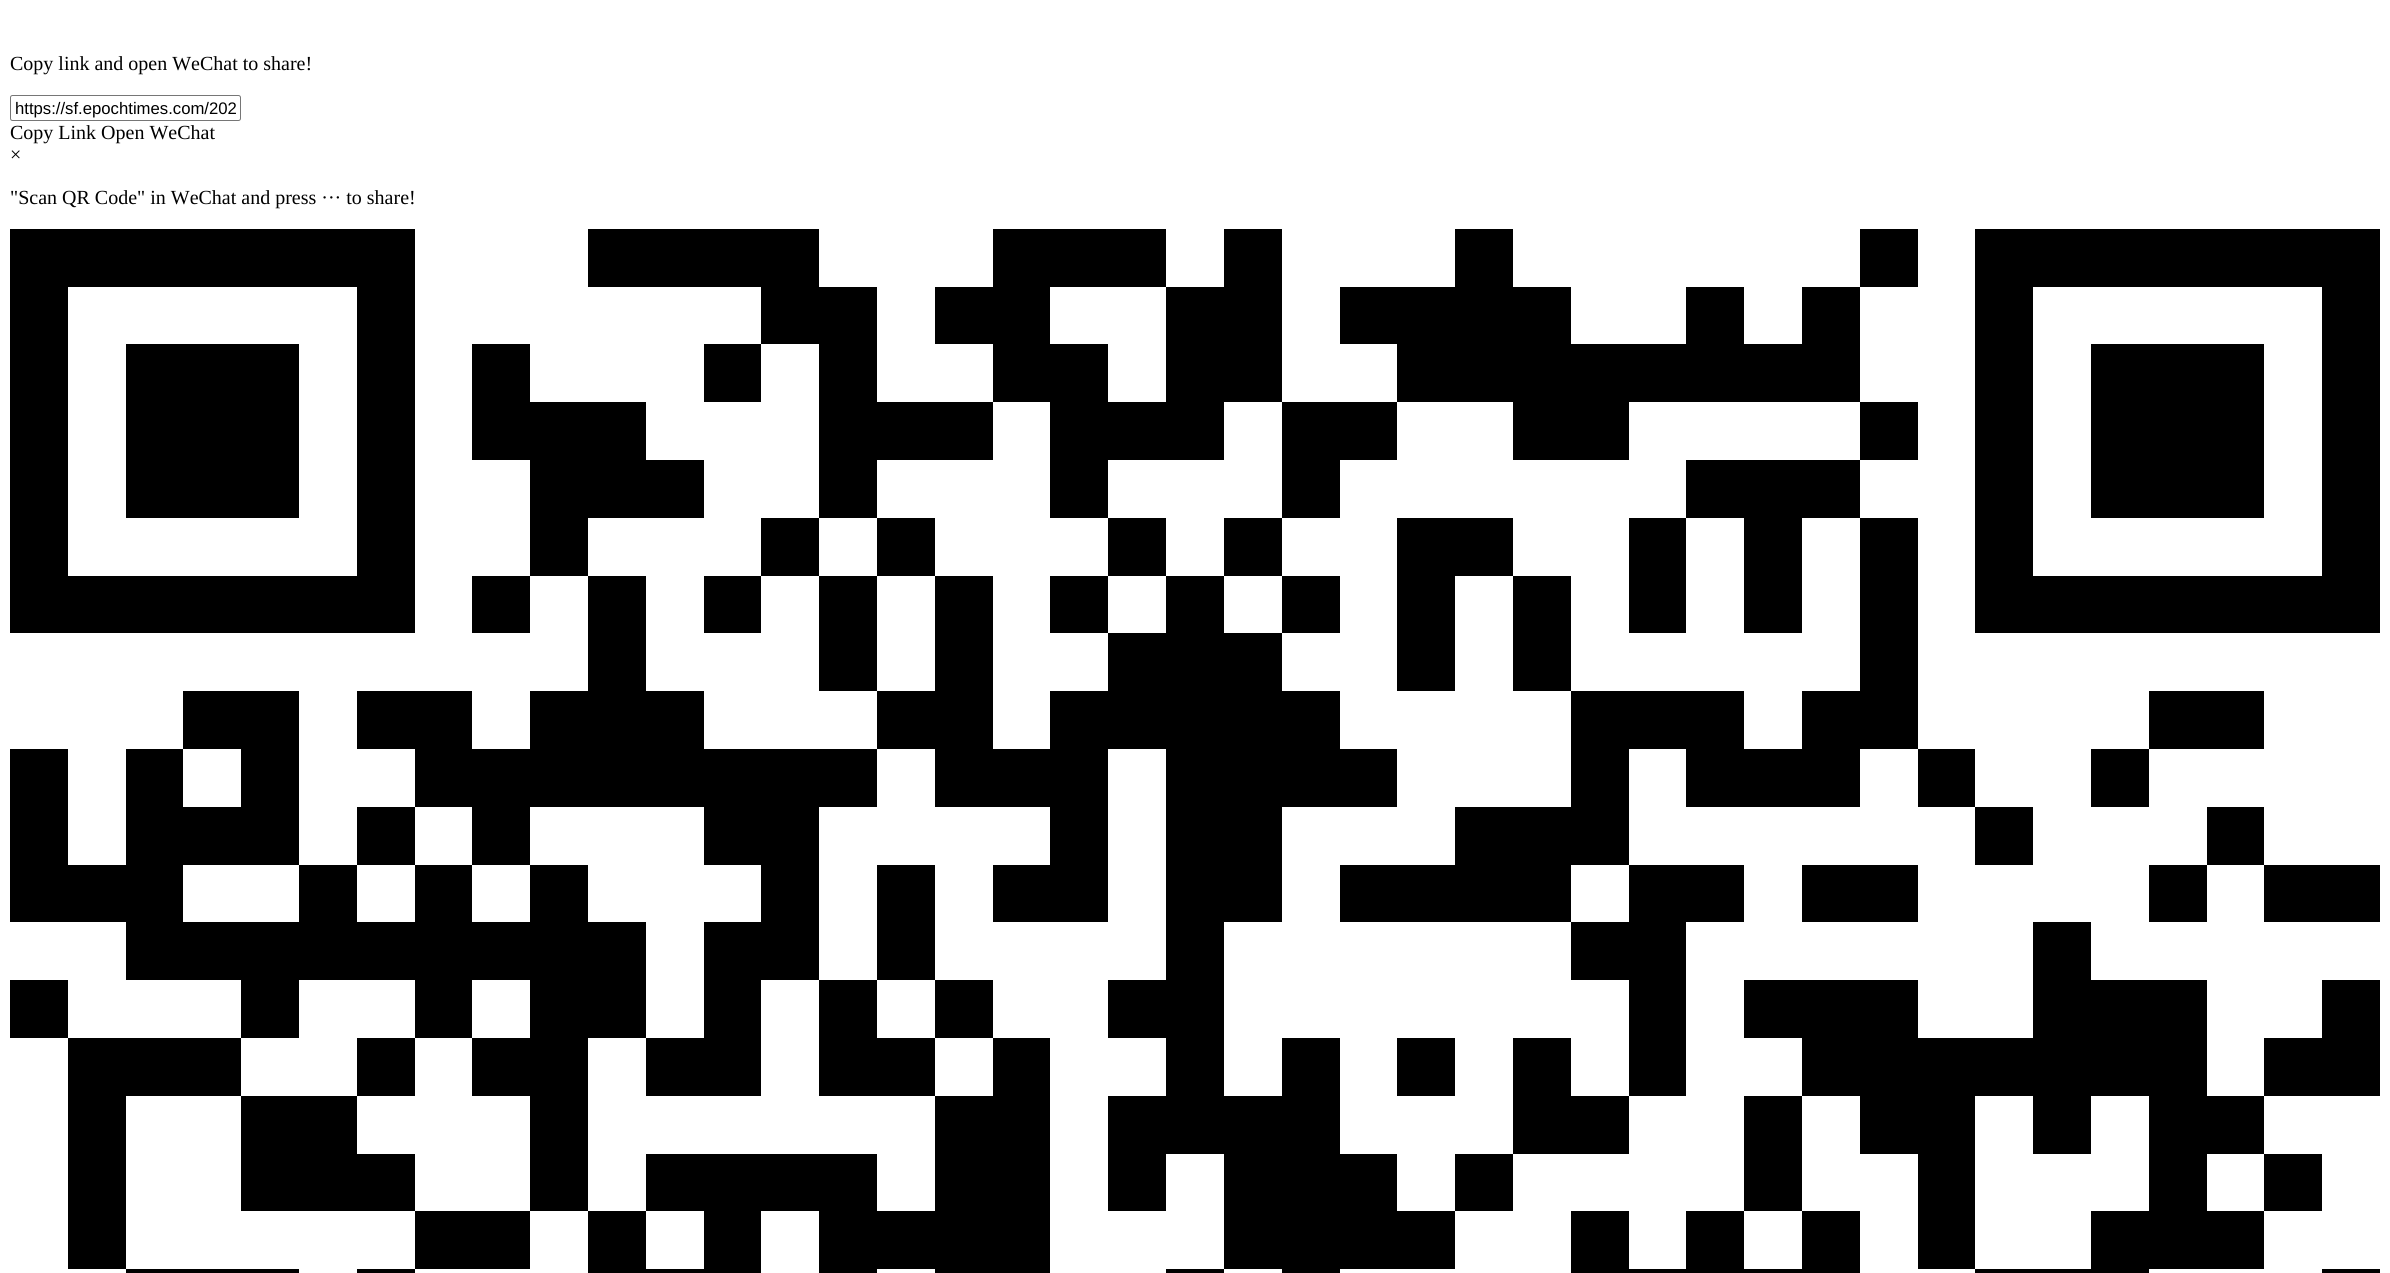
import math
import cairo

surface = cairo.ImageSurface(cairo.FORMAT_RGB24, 2390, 1273)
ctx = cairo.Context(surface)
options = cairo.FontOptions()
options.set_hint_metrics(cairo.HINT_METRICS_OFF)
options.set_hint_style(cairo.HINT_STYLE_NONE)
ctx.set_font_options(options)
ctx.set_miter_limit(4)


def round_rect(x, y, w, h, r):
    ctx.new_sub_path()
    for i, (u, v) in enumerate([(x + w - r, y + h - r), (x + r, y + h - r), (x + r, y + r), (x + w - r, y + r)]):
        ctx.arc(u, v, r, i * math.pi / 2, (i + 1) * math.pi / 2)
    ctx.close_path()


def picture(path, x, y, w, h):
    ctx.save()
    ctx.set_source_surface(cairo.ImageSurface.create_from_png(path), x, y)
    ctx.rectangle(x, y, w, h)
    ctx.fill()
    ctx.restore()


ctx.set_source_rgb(1, 1, 1)
ctx.paint()
ctx.select_font_face("Liberation Serif")
ctx.set_font_size(20)
ctx.set_source_rgb(0, 0, 0)
ctx.move_to(10, 70)
ctx.show_text("Copy link and open WeChat to share!")
round_rect(10.5, 95.5, 230, 25, 2)
ctx.set_source_rgb(0.463, 0.463, 0.463)
ctx.set_line_width(1)
ctx.stroke()
ctx.select_font_face("Liberation Sans")
ctx.set_font_size(16.7)
ctx.set_source_rgb(0, 0, 0)
ctx.move_to(15, 114)
ctx.show_text("https://sf.epochtimes.com/202")
ctx.select_font_face("Liberation Serif")
ctx.set_font_size(20)
ctx.move_to(10, 139)
ctx.show_text("Copy Link Open WeChat")
ctx.move_to(10, 161)
ctx.show_text("×")
ctx.move_to(10, 204)
ctx.show_text("\"Scan QR Code\" in WeChat and press ··· to share!")
picture("img1.png", 10, 229, 2370, 1044)
surface.write_to_png("page.png")
